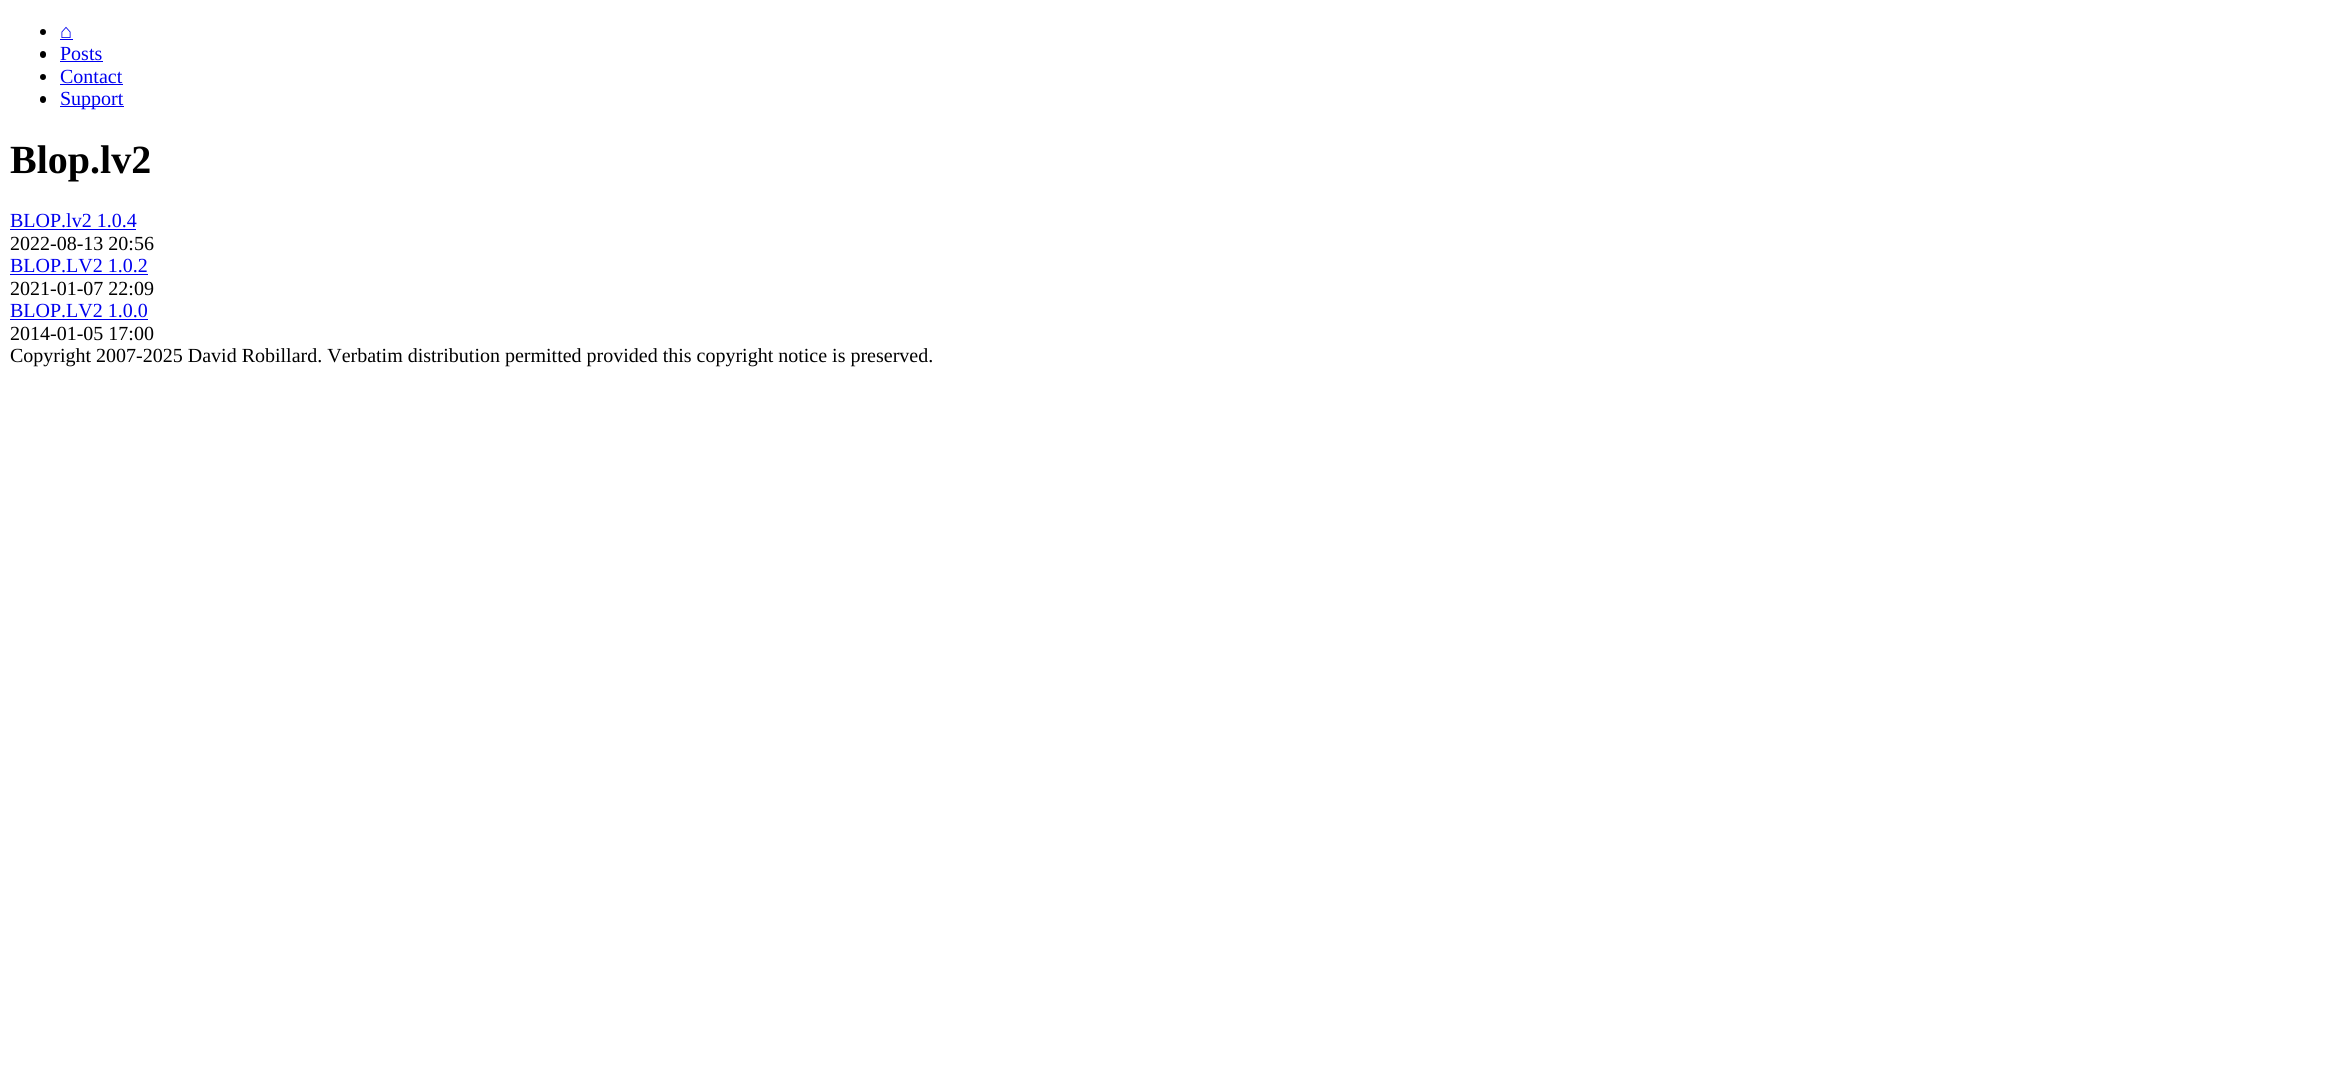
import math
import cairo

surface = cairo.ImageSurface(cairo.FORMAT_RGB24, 2350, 1092)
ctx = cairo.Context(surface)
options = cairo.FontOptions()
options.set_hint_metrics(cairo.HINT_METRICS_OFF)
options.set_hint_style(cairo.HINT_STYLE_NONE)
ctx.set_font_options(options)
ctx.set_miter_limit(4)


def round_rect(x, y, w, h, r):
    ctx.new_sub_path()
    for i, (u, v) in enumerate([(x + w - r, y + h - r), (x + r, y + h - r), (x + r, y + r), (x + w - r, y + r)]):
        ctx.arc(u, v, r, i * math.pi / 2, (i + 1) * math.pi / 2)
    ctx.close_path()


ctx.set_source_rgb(1, 1, 1)
ctx.paint()
ctx.set_source_rgb(0, 0, 0)
ctx.arc(43, 32, 3, 0, 2 * math.pi)
ctx.fill()
ctx.select_font_face("Liberation Serif")
ctx.set_font_size(20)
ctx.set_source_rgb(0, 0, 0.933)
ctx.move_to(60, 38)
ctx.show_text("⌂")
ctx.rectangle(60, 39, 13, 1)
ctx.fill()
ctx.set_source_rgb(0, 0, 0)
round_rect(40, 51, 6, 7, 3)
ctx.fill()
ctx.set_source_rgb(0, 0, 0.933)
ctx.move_to(60, 60)
ctx.show_text("Posts")
ctx.rectangle(60, 61, 43, 1)
ctx.fill()
ctx.set_source_rgb(0, 0, 0)
ctx.arc(43, 77, 3, 0, 2 * math.pi)
ctx.fill()
ctx.set_source_rgb(0, 0, 0.933)
ctx.move_to(60, 83)
ctx.show_text("Contact")
ctx.rectangle(60, 84, 63, 1)
ctx.fill()
ctx.set_source_rgb(0, 0, 0)
round_rect(40, 96, 6, 7, 3)
ctx.fill()
ctx.set_source_rgb(0, 0, 0.933)
ctx.rectangle(60, 106, 64, 1)
ctx.fill()
ctx.move_to(60, 105)
ctx.show_text("Support")
ctx.select_font_face("Liberation Serif", cairo.FONT_SLANT_NORMAL, cairo.FONT_WEIGHT_BOLD)
ctx.set_font_size(40)
ctx.set_source_rgb(0, 0, 0)
ctx.move_to(10, 173)
ctx.show_text("Blop.lv2")
ctx.select_font_face("Liberation Serif")
ctx.set_font_size(20)
ctx.set_source_rgb(0, 0, 0.933)
ctx.move_to(10, 227)
ctx.show_text("BLOP.lv2 1.0.4")
ctx.rectangle(10, 229, 126, 1)
ctx.fill()
ctx.set_source_rgb(0, 0, 0)
ctx.move_to(10, 250)
ctx.show_text("2022-08-13 20:56")
ctx.set_source_rgb(0, 0, 0.933)
ctx.move_to(10, 272)
ctx.show_text("BLOP.LV2 1.0.2")
ctx.rectangle(10, 274, 138, 1)
ctx.fill()
ctx.set_source_rgb(0, 0, 0)
ctx.move_to(10, 295)
ctx.show_text("2021-01-07 22:09")
ctx.set_source_rgb(0, 0, 0.933)
ctx.move_to(10, 317)
ctx.show_text("BLOP.LV2 1.0.0")
ctx.rectangle(10, 319, 138, 1)
ctx.fill()
ctx.set_source_rgb(0, 0, 0)
ctx.move_to(10, 340)
ctx.show_text("2014-01-05 17:00")
ctx.move_to(10, 362)
ctx.show_text("Copyright 2007-2025 David Robillard. Verbatim distribution permitted provided this copyright notice is preserved.")
surface.write_to_png("page.png")
